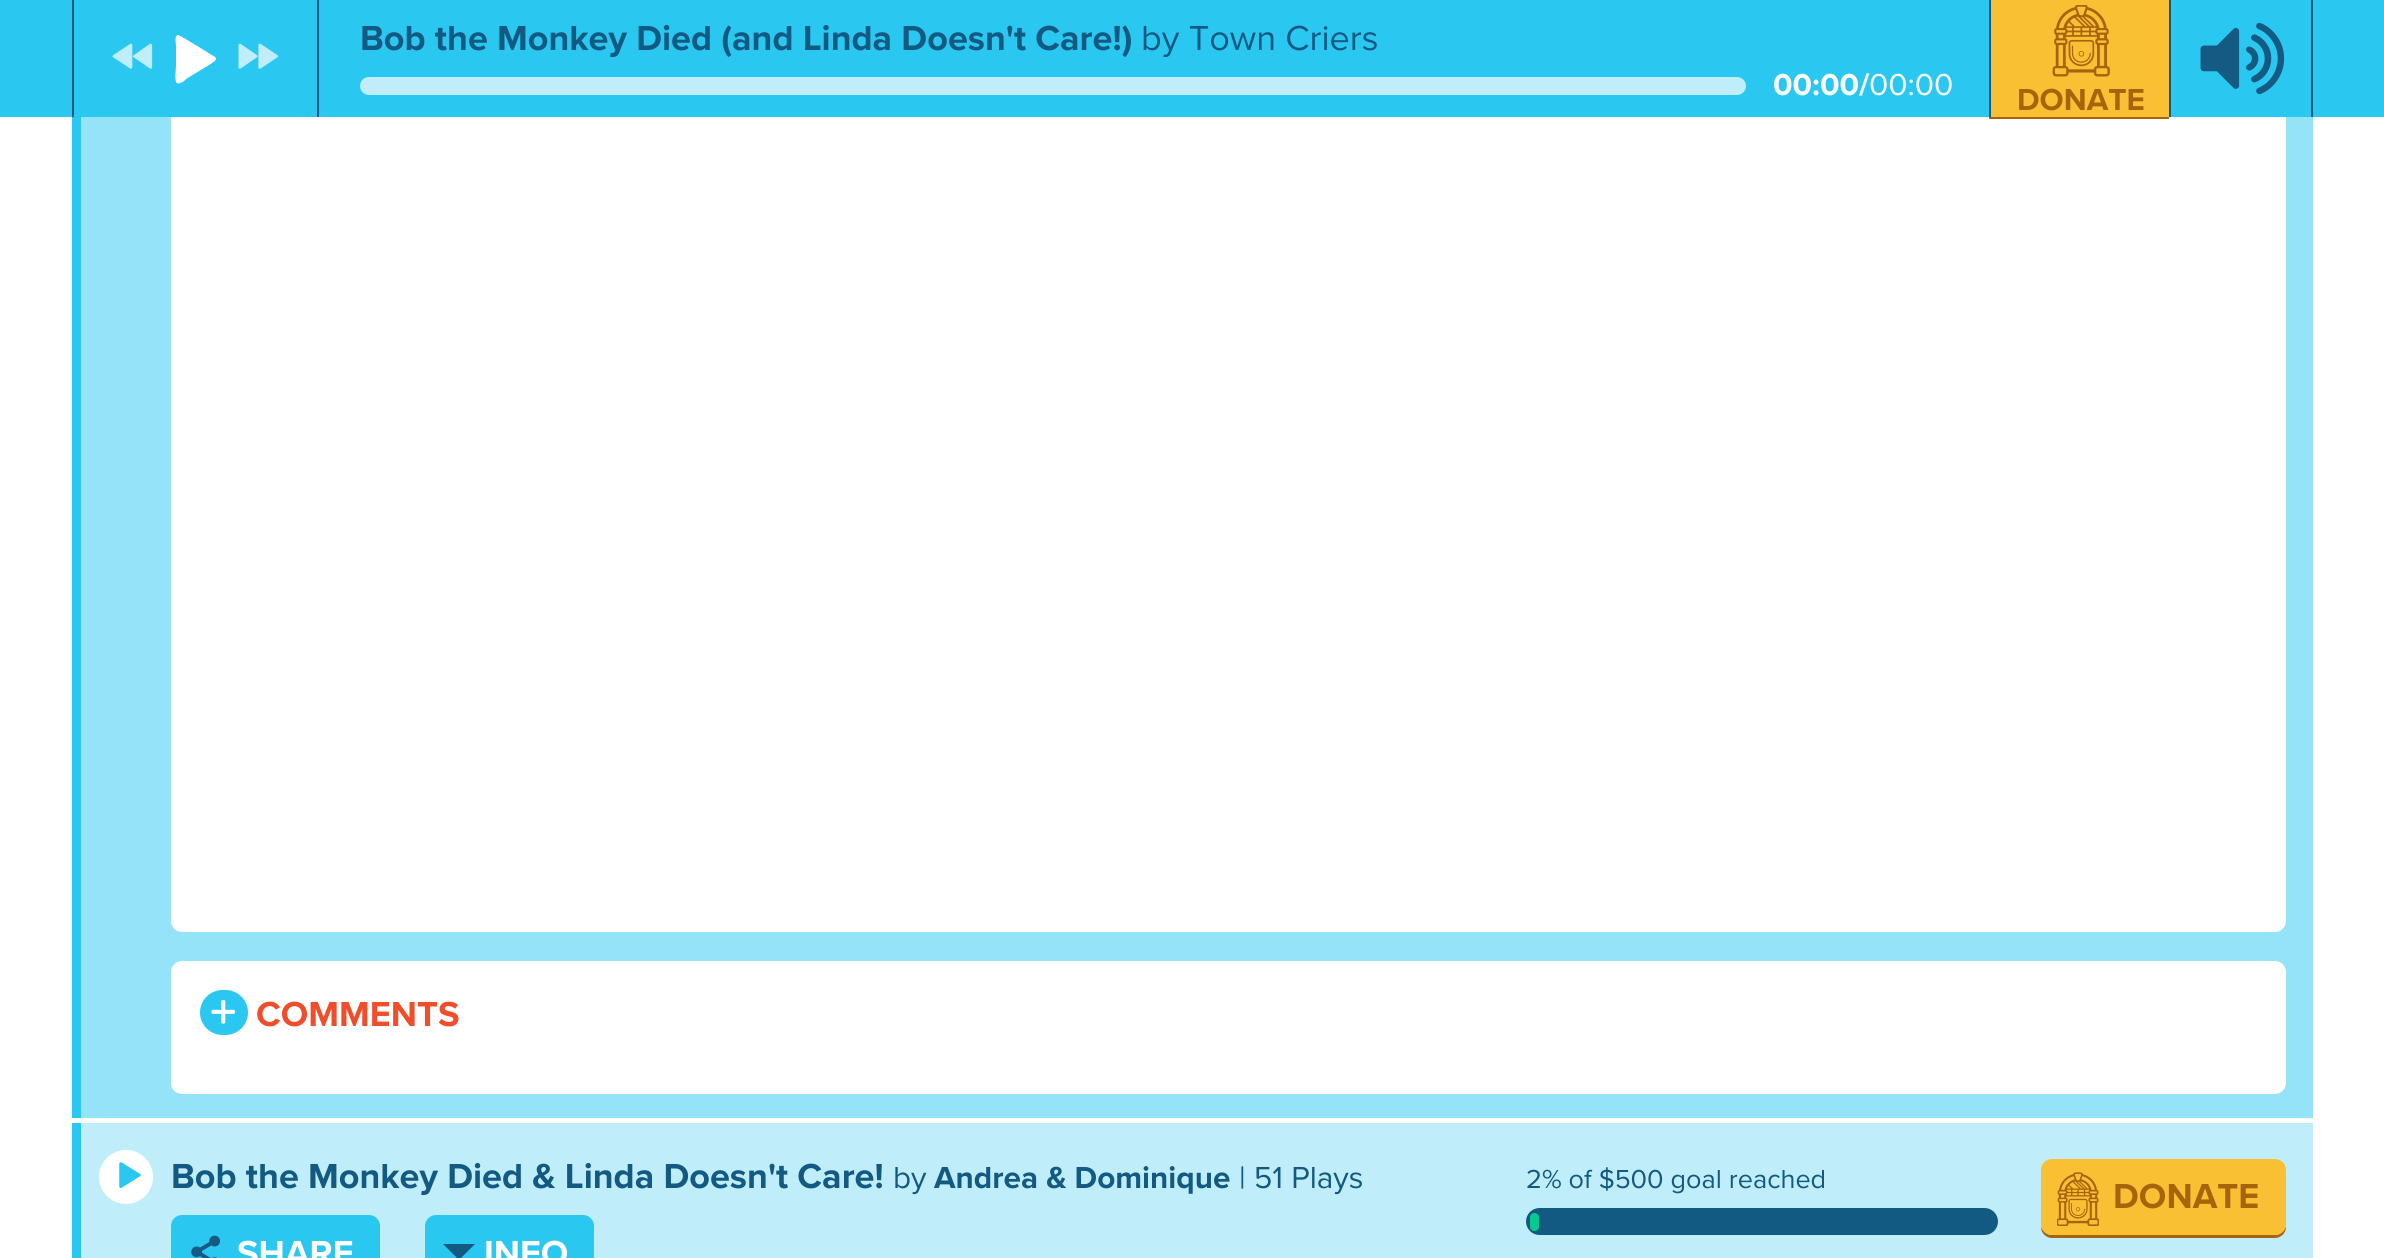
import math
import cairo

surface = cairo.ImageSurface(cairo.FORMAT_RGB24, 2384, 1258)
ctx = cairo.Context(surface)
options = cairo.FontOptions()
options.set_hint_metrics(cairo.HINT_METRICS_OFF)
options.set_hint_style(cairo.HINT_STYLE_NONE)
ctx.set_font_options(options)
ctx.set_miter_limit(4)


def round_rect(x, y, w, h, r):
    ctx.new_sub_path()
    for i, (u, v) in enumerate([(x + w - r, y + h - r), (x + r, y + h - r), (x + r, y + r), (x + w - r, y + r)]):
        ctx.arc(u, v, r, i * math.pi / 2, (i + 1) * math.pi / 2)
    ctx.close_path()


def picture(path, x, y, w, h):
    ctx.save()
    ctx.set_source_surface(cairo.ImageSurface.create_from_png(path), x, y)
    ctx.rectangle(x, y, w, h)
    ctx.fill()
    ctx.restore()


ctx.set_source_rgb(1, 1, 1)
ctx.paint()
ctx.set_source_rgb(0.58, 0.89, 0.969)
ctx.rectangle(81, 117, 2232, 1001)
ctx.fill()
ctx.set_source_rgb(1, 1, 1)
round_rect(171, -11, 2115, 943, 11)
ctx.fill()
ctx.set_source_rgb(0.165, 0.784, 0.941)
ctx.rectangle(0, 0, 2384, 117)
ctx.fill()
ctx.set_source_rgb(0.078, 0.353, 0.514)
ctx.rectangle(317, 0, 2, 117)
ctx.fill()
ctx.rectangle(72, 0, 2, 117)
ctx.fill()
picture("img1.png", 112, 43, 41, 26)
ctx.set_source_rgb(1, 1, 1)
ctx.new_path()
ctx.move_to(215, 57)
ctx.curve_to(219, 60, 210, 64, 209, 65)
ctx.line_to(186, 79)
ctx.curve_to(186, 80, 179, 85, 177, 83)
ctx.curve_to(174, 82, 176, 68, 176, 66)
ctx.line_to(176, 45)
ctx.curve_to(176, 45, 174, 35, 178, 35)
ctx.curve_to(180, 35, 210, 54, 215, 57)
ctx.close_path()
ctx.fill()
picture("img2.png", 238, 43, 41, 26)
ctx.select_font_face("Proxima Nova", cairo.FONT_SLANT_NORMAL, cairo.FONT_WEIGHT_BOLD)
ctx.set_font_size(36)
ctx.set_source_rgb(0.078, 0.353, 0.514)
ctx.move_to(360, 50)
ctx.show_text("Bob the Monkey Died (and Linda Doesn't Care!)")
ctx.select_font_face("Proxima Nova")
ctx.move_to(1141, 50)
ctx.show_text("by Town Criers")
ctx.set_source_rgb(0.749, 0.933, 0.98)
round_rect(360, 77, 1386, 18, 9)
ctx.fill()
ctx.select_font_face("Proxima Nova", cairo.FONT_SLANT_NORMAL, cairo.FONT_WEIGHT_BOLD)
ctx.set_font_size(31.5)
ctx.set_source_rgb(1, 1, 1)
ctx.move_to(1773, 95)
ctx.show_text("00:00/")
ctx.select_font_face("Proxima Nova")
ctx.move_to(1869, 95)
ctx.show_text("00:00")
ctx.set_source_rgb(0.078, 0.353, 0.514)
ctx.rectangle(2311, 0, 2, 117)
ctx.fill()
ctx.rectangle(2169, 0, 2, 117)
ctx.fill()
picture("img3.png", 2200, 22, 85, 73)
ctx.set_source_rgb(0.659, 0.392, 0.043)
ctx.rectangle(1989, 117, 180, 2)
ctx.fill()
ctx.set_source_rgb(0.98, 0.753, 0.204)
ctx.rectangle(1991, 0, 178, 117)
ctx.fill()
ctx.set_source_rgb(0.078, 0.353, 0.514)
ctx.rectangle(1989, 0, 2, 117)
ctx.fill()
picture("img4.png", 2052, 5, 58, 72)
ctx.select_font_face("Proxima Nova", cairo.FONT_SLANT_NORMAL, cairo.FONT_WEIGHT_BOLD)
ctx.set_source_rgb(0.659, 0.392, 0.043)
ctx.move_to(2017, 110)
ctx.show_text("DONATE")
ctx.set_source_rgb(0.165, 0.784, 0.941)
ctx.rectangle(72, 117, 9, 1001)
ctx.fill()
ctx.set_source_rgb(1, 1, 1)
round_rect(171, 961, 2115, 133, 11)
ctx.fill()
ctx.set_source_rgb(0.165, 0.784, 0.941)
round_rect(200, 990, 48, 45, 22.5)
ctx.fill()
picture("img5.png", 211, 1000, 24, 24)
ctx.set_font_size(36)
ctx.set_source_rgb(0.941, 0.306, 0.165)
ctx.move_to(256, 1026)
ctx.show_text("COMMENTS")
ctx.set_source_rgb(0.749, 0.933, 0.98)
ctx.rectangle(81, 1123, 2232, 135)
ctx.fill()
ctx.set_source_rgb(0.165, 0.784, 0.941)
ctx.rectangle(72, 1123, 9, 135)
ctx.fill()
ctx.set_source_rgb(1, 1, 1)
ctx.arc(126, 1177, 27, 0, 2 * math.pi)
ctx.fill()
picture("img6.png", 119, 1162, 22, 26)
ctx.set_source_rgb(0.078, 0.353, 0.514)
ctx.move_to(171, 1188)
ctx.show_text("Bob the Monkey Died & Linda Doesn't Care!")
ctx.select_font_face("Proxima Nova")
ctx.set_font_size(31.5)
ctx.move_to(893, 1188)
ctx.show_text("by")
ctx.select_font_face("Proxima Nova", cairo.FONT_SLANT_NORMAL, cairo.FONT_WEIGHT_BOLD)
ctx.move_to(934, 1188)
ctx.show_text("Andrea & Dominique")
ctx.select_font_face("Proxima Nova")
ctx.move_to(1239, 1188)
ctx.show_text("| 51 Plays")
ctx.set_font_size(27)
ctx.move_to(1526, 1188)
ctx.show_text("2% of $500 goal reached")
round_rect(1526, 1208, 472, 27, 13.5)
ctx.fill()
ctx.set_source_rgb(0.024, 0.796, 0.553)
round_rect(1530, 1213, 9, 18, 4.5)
ctx.fill()
ctx.set_source_rgb(0.659, 0.392, 0.043)
ctx.new_path()
ctx.move_to(2041, 1226)
ctx.line_to(2041, 1227)
ctx.curve_to(2041, 1233, 2046, 1238, 2052, 1238)
ctx.line_to(2275, 1238)
ctx.curve_to(2281, 1238, 2286, 1233, 2286, 1227)
ctx.line_to(2286, 1224)
ctx.curve_to(2286, 1230, 2281, 1235, 2275, 1235)
ctx.line_to(2052, 1235)
ctx.curve_to(2047, 1235, 2042, 1231, 2041, 1226)
ctx.close_path()
ctx.fill()
ctx.set_source_rgb(0.98, 0.753, 0.204)
round_rect(2041, 1159, 245, 76, 11)
ctx.fill()
picture("img7.png", 2057, 1172, 42, 54)
ctx.select_font_face("Proxima Nova", cairo.FONT_SLANT_NORMAL, cairo.FONT_WEIGHT_BOLD)
ctx.set_font_size(36)
ctx.set_source_rgb(0.659, 0.392, 0.043)
ctx.move_to(2113, 1208)
ctx.show_text("DONATE")
ctx.set_source_rgb(0.165, 0.784, 0.941)
round_rect(171, 1215, 209, 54, 11)
ctx.fill()
picture("img8.png", 191, 1235, 29, 23)
ctx.set_source_rgb(1, 1, 1)
ctx.move_to(237, 1265)
ctx.show_text("SHARE")
ctx.set_source_rgb(0.165, 0.784, 0.941)
round_rect(425, 1215, 169, 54, 11)
ctx.fill()
ctx.set_source_rgb(0.078, 0.353, 0.514)
ctx.new_path()
ctx.move_to(443, 1244)
ctx.line_to(475, 1244)
ctx.line_to(459, 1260)
ctx.close_path()
ctx.fill()
ctx.set_source_rgb(1, 1, 1)
ctx.move_to(484, 1265)
ctx.show_text("INFO")
surface.write_to_png("page.png")
